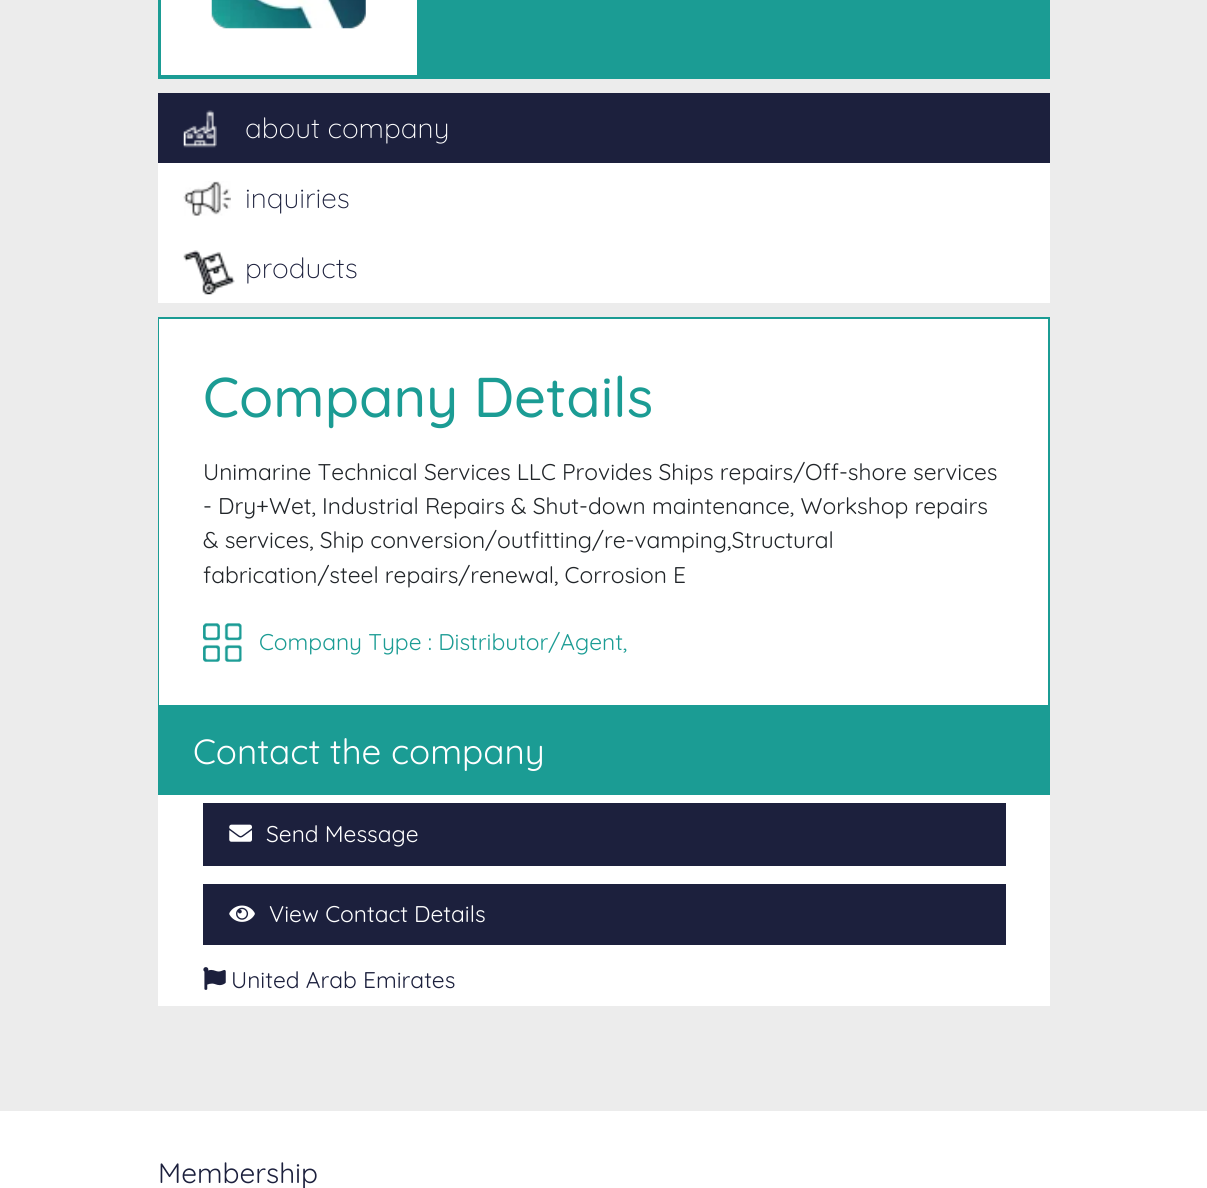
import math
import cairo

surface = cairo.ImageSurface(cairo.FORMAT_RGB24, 1207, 1188)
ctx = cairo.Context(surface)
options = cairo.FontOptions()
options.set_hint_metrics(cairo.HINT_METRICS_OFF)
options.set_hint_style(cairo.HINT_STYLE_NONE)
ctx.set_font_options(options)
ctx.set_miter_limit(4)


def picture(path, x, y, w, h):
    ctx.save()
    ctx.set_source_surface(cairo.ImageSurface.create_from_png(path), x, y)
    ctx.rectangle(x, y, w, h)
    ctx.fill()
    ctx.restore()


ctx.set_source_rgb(0.925, 0.925, 0.925)
ctx.paint()
ctx.set_source_rgb(0.106, 0.612, 0.58)
ctx.rectangle(158, 0, 892, 79)
ctx.fill()
ctx.set_source_rgb(1, 1, 1)
ctx.rectangle(161, 0, 256, 75)
ctx.fill()
picture("img1.png", 211, 0, 155, 29)
ctx.set_source_rgb(0.11, 0.125, 0.239)
ctx.rectangle(158, 93, 892, 70)
ctx.fill()
picture("img2.png", 183, 110, 34, 38)
ctx.select_font_face("Quicksand Light")
ctx.set_font_size(28)
ctx.set_source_rgb(1, 1, 1)
ctx.move_to(245, 138)
ctx.show_text("about company")
ctx.rectangle(158, 163, 892, 140)
ctx.fill()
picture("img3.png", 183, 181, 48, 35)
ctx.set_source_rgb(0.11, 0.125, 0.239)
ctx.move_to(245, 208)
ctx.show_text("inquiries")
picture("img4.png", 183, 250, 52, 45)
ctx.move_to(245, 278)
ctx.show_text("products")
ctx.rectangle(159, 318, 890, 388)
ctx.set_source_rgb(0.106, 0.612, 0.58)
ctx.stroke()
ctx.set_source_rgb(1, 1, 1)
ctx.rectangle(159, 319, 889, 386)
ctx.fill()
ctx.select_font_face("Quicksand Medium")
ctx.set_font_size(56)
ctx.set_source_rgb(0.106, 0.612, 0.58)
ctx.move_to(203, 417)
ctx.show_text("Company Details")
ctx.select_font_face("Quicksand")
ctx.set_font_size(22.75)
ctx.set_source_rgb(0.129, 0.145, 0.161)
ctx.move_to(203, 480)
ctx.show_text("Unimarine Technical Services LLC Provides Ships repairs/Off-shore services")
ctx.move_to(203, 514)
ctx.show_text("- Dry+Wet, Industrial Repairs & Shut-down maintenance, Workshop repairs")
ctx.move_to(203, 548)
ctx.show_text("& services, Ship conversion/outfitting/re-vamping,Structural")
ctx.move_to(203, 583)
ctx.show_text("fabrication/steel repairs/renewal, Corrosion E")
picture("img5.png", 203, 623, 39, 39)
ctx.set_source_rgb(0.106, 0.612, 0.58)
ctx.move_to(259, 650)
ctx.show_text("Company Type : Distributor/Agent,")
ctx.rectangle(158, 707, 892, 88)
ctx.fill()
ctx.set_font_size(35)
ctx.set_source_rgb(1, 1, 1)
ctx.move_to(193, 764)
ctx.show_text("Contact the company")
ctx.rectangle(158, 795, 892, 211)
ctx.fill()
ctx.set_source_rgb(0.11, 0.125, 0.239)
ctx.rectangle(203, 803, 803, 63)
ctx.fill()
picture("img6.png", 229, 824, 23, 18)
ctx.set_font_size(22.75)
ctx.set_source_rgb(1, 1, 1)
ctx.move_to(266, 842)
ctx.show_text("Send Message")
ctx.set_source_rgb(0.11, 0.125, 0.239)
ctx.rectangle(203, 884, 803, 61)
ctx.fill()
picture("img7.png", 229, 905, 26, 17)
ctx.set_source_rgb(1, 1, 1)
ctx.move_to(269, 922)
ctx.show_text("View Contact Details")
picture("img8.png", 203, 967, 23, 23)
ctx.set_source_rgb(0.11, 0.125, 0.239)
ctx.move_to(231, 988)
ctx.show_text("United Arab Emirates")
ctx.set_source_rgb(1, 1, 1)
ctx.rectangle(0, 1111, 1207, 77)
ctx.fill()
ctx.set_font_size(28)
ctx.set_source_rgb(0.11, 0.125, 0.239)
ctx.move_to(158, 1183)
ctx.show_text("Membership")
surface.write_to_png("page.png")
